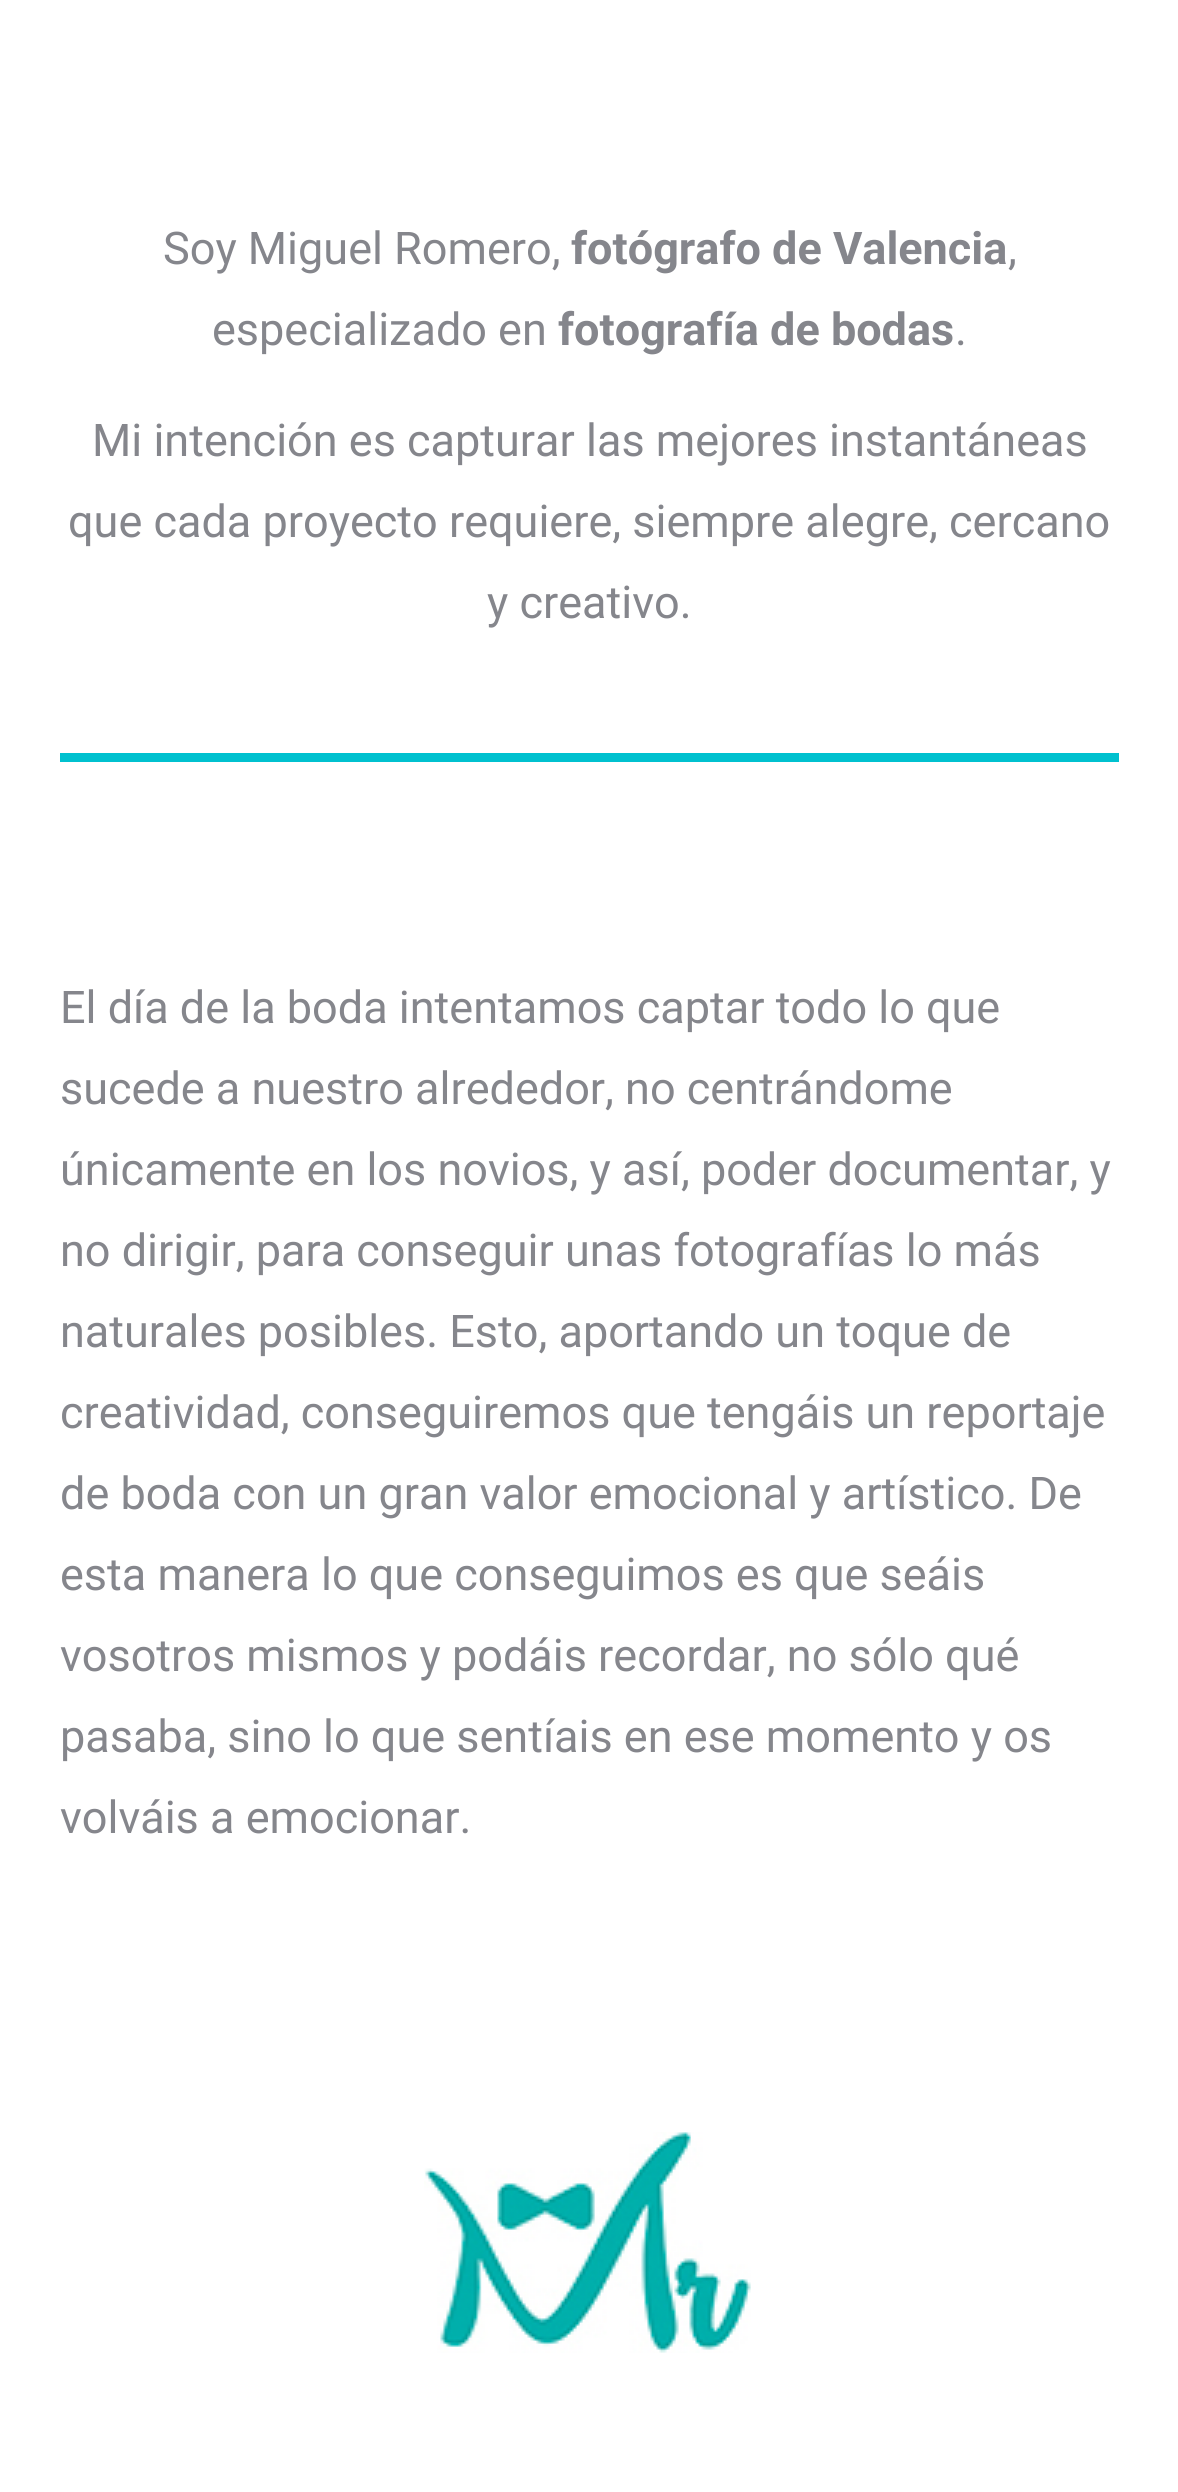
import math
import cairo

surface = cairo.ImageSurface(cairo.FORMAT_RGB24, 1178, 2492)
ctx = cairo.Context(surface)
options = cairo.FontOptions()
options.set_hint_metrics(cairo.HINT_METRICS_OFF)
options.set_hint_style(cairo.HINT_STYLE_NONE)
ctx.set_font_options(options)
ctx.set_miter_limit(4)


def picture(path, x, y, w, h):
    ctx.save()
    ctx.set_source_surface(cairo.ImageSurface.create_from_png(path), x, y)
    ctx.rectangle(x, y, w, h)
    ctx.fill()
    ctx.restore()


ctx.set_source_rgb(1, 1, 1)
ctx.paint()
ctx.select_font_face("Roboto")
ctx.set_font_size(45)
ctx.set_source_rgb(0.522, 0.525, 0.549)
ctx.move_to(163, 264)
ctx.show_text("Soy Miguel Romero,")
ctx.select_font_face("Roboto", cairo.FONT_SLANT_NORMAL, cairo.FONT_WEIGHT_BOLD)
ctx.move_to(571, 264)
ctx.show_text("fotógrafo de Valencia")
ctx.select_font_face("Roboto")
ctx.move_to(1008, 264)
ctx.show_text(",")
ctx.move_to(212, 345)
ctx.show_text("especializado en")
ctx.select_font_face("Roboto", cairo.FONT_SLANT_NORMAL, cairo.FONT_WEIGHT_BOLD)
ctx.move_to(558, 345)
ctx.show_text("fotografía de bodas")
ctx.select_font_face("Roboto")
ctx.move_to(955, 345)
ctx.show_text(".")
ctx.move_to(92, 456)
ctx.show_text("Mi intención es capturar las mejores instantáneas")
ctx.move_to(68, 537)
ctx.show_text("que cada proyecto requiere, siempre alegre, cercano")
ctx.move_to(487, 618)
ctx.show_text("y creativo.")
ctx.set_source_rgb(0, 0.757, 0.812)
ctx.rectangle(60, 753, 1059, 9)
ctx.fill()
ctx.set_source_rgb(0.522, 0.525, 0.549)
ctx.move_to(60, 1023)
ctx.show_text("El día de la boda intentamos captar todo lo que")
ctx.move_to(60, 1104)
ctx.show_text("sucede a nuestro alrededor, no centrándome")
ctx.move_to(60, 1185)
ctx.show_text("únicamente en los novios, y así, poder documentar, y")
ctx.move_to(60, 1266)
ctx.show_text("no dirigir, para conseguir unas fotografías lo más")
ctx.move_to(60, 1347)
ctx.show_text("naturales posibles. Esto, aportando un toque de")
ctx.move_to(60, 1428)
ctx.show_text("creatividad, conseguiremos que tengáis un reportaje")
ctx.move_to(60, 1509)
ctx.show_text("de boda con un gran valor emocional y artístico. De")
ctx.move_to(60, 1590)
ctx.show_text("esta manera lo que conseguimos es que seáis")
ctx.move_to(60, 1671)
ctx.show_text("vosotros mismos y podáis recordar, no sólo qué")
ctx.move_to(60, 1752)
ctx.show_text("pasaba, sino lo que sentíais en ese momento y os")
ctx.move_to(60, 1833)
ctx.show_text("volváis a emocionar.")
picture("img1.png", 424, 2132, 327, 221)
surface.write_to_png("page.png")
